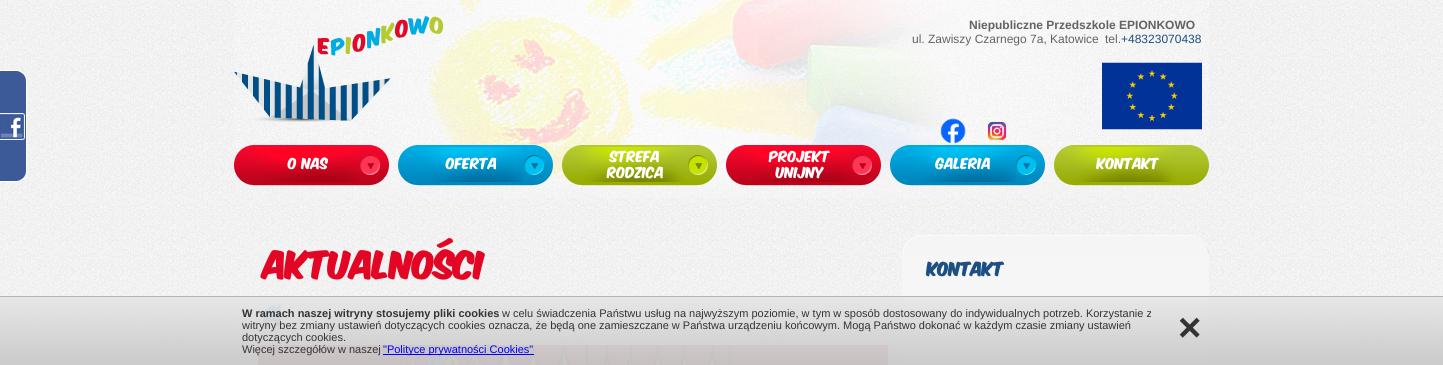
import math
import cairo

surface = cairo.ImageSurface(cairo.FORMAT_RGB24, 1443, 365)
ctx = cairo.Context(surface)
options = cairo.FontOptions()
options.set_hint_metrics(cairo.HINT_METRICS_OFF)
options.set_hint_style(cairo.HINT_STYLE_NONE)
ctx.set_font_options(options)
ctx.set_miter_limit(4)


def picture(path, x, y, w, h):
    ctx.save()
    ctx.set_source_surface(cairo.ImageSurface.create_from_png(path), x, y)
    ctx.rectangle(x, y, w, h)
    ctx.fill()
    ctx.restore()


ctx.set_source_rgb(1, 1, 1)
ctx.paint()
picture("img1.png", 0, 0, 1443, 365)
picture("img2.png", 0, 70, 27, 112)
picture("img3.png", 234, 0, 975, 198)
picture("img4.png", 234, 16, 209, 106)
ctx.select_font_face("Liberation Sans", cairo.FONT_SLANT_NORMAL, cairo.FONT_WEIGHT_BOLD)
ctx.set_font_size(12)
ctx.set_source_rgb(0.388, 0.388, 0.388)
ctx.move_to(969, 29)
ctx.show_text("Niepubliczne Przedszkole EPIONKOWO")
ctx.select_font_face("Liberation Sans")
ctx.move_to(912, 43)
ctx.show_text("ul. Zawiszy Czarnego 7a, Katowice")
ctx.move_to(1105, 43)
ctx.show_text("tel.")
ctx.set_source_rgb(0.11, 0.31, 0.51)
ctx.move_to(1121, 43)
ctx.show_text("+48323070438")
picture("img5.png", 940, 118, 26, 26)
picture("img6.png", 987, 121, 20, 20)
picture("img7.png", 1102, 62, 100, 68)
picture("img8.png", 234, 145, 126, 41)
ctx.select_font_face("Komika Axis")
ctx.set_font_size(13)
ctx.set_source_rgb(1, 1, 1)
ctx.move_to(288, 169)
ctx.show_text("O nas")
picture("img9.png", 360, 145, 29, 41)
picture("img10.png", 398, 145, 126, 41)
ctx.move_to(446, 169)
ctx.show_text("Oferta")
picture("img11.png", 524, 145, 29, 41)
picture("img12.png", 562, 145, 126, 41)
ctx.move_to(610, 162)
ctx.show_text("Strefa")
ctx.move_to(607, 178)
ctx.show_text("Rodzica")
picture("img13.png", 688, 145, 29, 41)
picture("img14.png", 726, 145, 126, 41)
ctx.move_to(769, 162)
ctx.show_text("Projekt")
ctx.move_to(776, 178)
ctx.show_text("Unijny")
picture("img15.png", 852, 145, 29, 41)
picture("img16.png", 890, 145, 126, 41)
ctx.move_to(936, 169)
ctx.show_text("Galeria")
picture("img17.png", 1016, 145, 29, 41)
picture("img18.png", 1054, 145, 126, 41)
ctx.move_to(1097, 169)
ctx.show_text("Kontakt")
picture("img19.png", 1180, 145, 29, 41)
ctx.select_font_face("Komika Axis", cairo.FONT_SLANT_NORMAL, cairo.FONT_WEIGHT_BOLD)
ctx.set_font_size(32)
ctx.set_source_rgb(0.886, 0.02, 0.141)
ctx.move_to(263, 279)
ctx.show_text("Aktualności")
picture("img20.png", 365, 316, 4, 1)
picture("img21.png", 258, 303, 28, 27)
picture("img22.png", 258, 345, 630, 20)
picture("img23.png", 902, 235, 307, 19)
ctx.set_source_rgb(0.961, 0.961, 0.961)
ctx.rectangle(902, 254, 307, 111)
ctx.fill()
ctx.set_font_size(16)
ctx.set_source_rgb(0.11, 0.31, 0.51)
ctx.move_to(927, 276)
ctx.show_text("Kontakt")
gradient = cairo.LinearGradient(722, 297, 722, 365)
gradient.add_color_stop_rgba(0, 0.902, 0.902, 0.902, 0.95)
gradient.add_color_stop_rgba(1, 0.784, 0.784, 0.784, 0.95)
ctx.set_source(gradient)
ctx.rectangle(0, 297, 1443, 68)
ctx.fill()
ctx.set_source_rgb(0.706, 0.706, 0.706)
ctx.rectangle(0, 296, 1443, 1)
ctx.fill()
ctx.select_font_face("Liberation Sans", cairo.FONT_SLANT_NORMAL, cairo.FONT_WEIGHT_BOLD)
ctx.set_font_size(11)
ctx.set_source_rgb(0.2, 0.2, 0.2)
ctx.move_to(242, 317)
ctx.show_text("W ramach naszej witryny stosujemy pliki cookies")
ctx.select_font_face("Liberation Sans")
ctx.move_to(502, 317)
ctx.show_text("w celu świadczenia Państwu usług na najwyższym poziomie, w tym w sposób dostosowany do indywidualnych potrzeb. Korzystanie z")
ctx.move_to(242, 329)
ctx.show_text("witryny bez zmiany ustawień dotyczących cookies oznacza, że będą one zamieszczane w Państwa urządzeniu końcowym. Mogą Państwo dokonać w każdym czasie zmiany ustawień")
ctx.move_to(242, 341)
ctx.show_text("dotyczących cookies.")
ctx.move_to(242, 353)
ctx.show_text("Więcej szczegółów w naszej")
ctx.set_source_rgb(0, 0, 1)
ctx.rectangle(383, 354, 151, 1)
ctx.fill()
ctx.move_to(383, 353)
ctx.show_text("\"Polityce prywatności Cookies\"")
ctx.select_font_face("Liberation Sans", cairo.FONT_SLANT_NORMAL, cairo.FONT_WEIGHT_BOLD)
ctx.set_font_size(40)
ctx.set_source_rgb(0.2, 0.2, 0.2)
ctx.move_to(1178, 341)
ctx.show_text("×")
surface.write_to_png("page.png")
